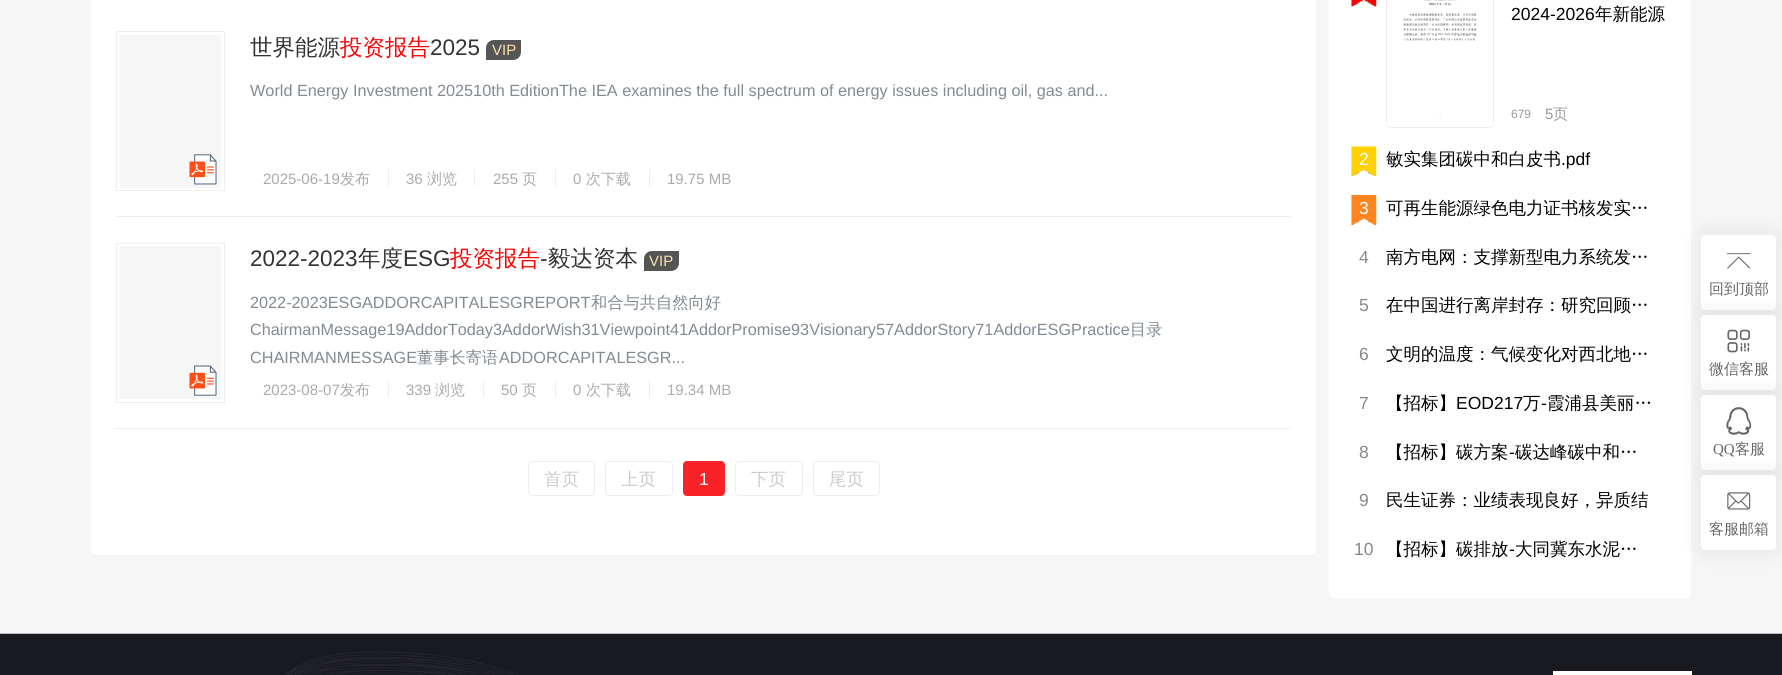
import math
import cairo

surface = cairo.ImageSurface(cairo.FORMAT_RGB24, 1782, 675)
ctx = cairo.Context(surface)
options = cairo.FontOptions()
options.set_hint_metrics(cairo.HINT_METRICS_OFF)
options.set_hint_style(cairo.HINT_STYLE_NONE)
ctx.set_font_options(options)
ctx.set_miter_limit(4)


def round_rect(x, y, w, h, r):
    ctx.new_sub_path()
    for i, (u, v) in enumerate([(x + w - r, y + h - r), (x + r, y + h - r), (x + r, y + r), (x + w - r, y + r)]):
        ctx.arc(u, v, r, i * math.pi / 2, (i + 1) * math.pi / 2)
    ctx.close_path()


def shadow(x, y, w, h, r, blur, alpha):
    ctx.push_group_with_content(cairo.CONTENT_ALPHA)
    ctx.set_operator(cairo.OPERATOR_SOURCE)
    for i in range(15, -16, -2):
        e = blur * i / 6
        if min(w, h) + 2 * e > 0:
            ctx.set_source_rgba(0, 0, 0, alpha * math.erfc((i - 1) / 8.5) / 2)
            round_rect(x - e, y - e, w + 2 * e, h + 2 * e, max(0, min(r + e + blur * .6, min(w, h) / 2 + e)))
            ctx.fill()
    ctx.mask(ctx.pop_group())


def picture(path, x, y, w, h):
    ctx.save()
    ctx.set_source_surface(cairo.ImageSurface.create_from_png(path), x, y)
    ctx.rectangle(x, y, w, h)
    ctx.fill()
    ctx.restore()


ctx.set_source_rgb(0.961, 0.961, 0.961)
ctx.paint()
ctx.set_source_rgb(1, 1, 1)
round_rect(91, -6, 1225, 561, 6)
ctx.fill()
ctx.set_source_rgb(0.925, 0.925, 0.925)
ctx.rectangle(116, 216, 1175, 1)
ctx.fill()
ctx.rectangle(116.5, 31.5, 108, 159)
ctx.set_source_rgb(0.933, 0.933, 0.933)
ctx.set_line_width(1)
ctx.stroke()
ctx.set_source_rgb(0.961, 0.961, 0.961)
ctx.rectangle(120, 35, 101, 153)
ctx.fill()
picture("img1.png", 189, 154, 28, 31)
ctx.select_font_face("WenQuanYi Zen Hei Medium")
ctx.set_font_size(22.5)
ctx.set_source_rgb(0.2, 0.2, 0.2)
ctx.move_to(250, 55)
ctx.show_text("世界能源")
ctx.set_source_rgb(1, 0, 0)
ctx.move_to(340, 55)
ctx.show_text("投资报告")
ctx.select_font_face("Liberation Sans")
ctx.set_source_rgb(0.2, 0.2, 0.2)
ctx.move_to(430, 55)
ctx.show_text("2025")
ctx.set_source_rgb(0.333, 0.333, 0.333)
ctx.new_path()
ctx.move_to(494, 40)
ctx.line_to(521, 40)
ctx.line_to(521, 52)
ctx.curve_to(521, 56.5, 517.5, 60, 513, 60)
ctx.line_to(486, 60)
ctx.line_to(486, 48)
ctx.curve_to(486, 43.5, 489.5, 40, 494, 40)
ctx.close_path()
ctx.fill()
ctx.set_font_size(15)
ctx.set_source_rgb(0.992, 0.878, 0.69)
ctx.move_to(492, 55)
ctx.show_text("VIP")
ctx.set_font_size(16.25)
ctx.set_source_rgb(0.51, 0.541, 0.573)
ctx.move_to(250, 96)
ctx.show_text("World Energy Investment 202510th EditionThe IEA examines the full spectrum of energy issues including oil, gas and...")
ctx.set_font_size(15)
ctx.set_source_rgb(0.667, 0.667, 0.667)
ctx.move_to(263, 184)
ctx.show_text("2025-06-19")
ctx.select_font_face("WenQuanYi Zen Hei Medium")
ctx.move_to(340, 184)
ctx.show_text("发布")
ctx.set_source_rgb(0.933, 0.933, 0.933)
ctx.rectangle(388, 169, 1, 17)
ctx.fill()
ctx.select_font_face("Liberation Sans")
ctx.set_source_rgb(0.667, 0.667, 0.667)
ctx.move_to(406, 184)
ctx.show_text("36")
ctx.select_font_face("WenQuanYi Zen Hei Medium")
ctx.move_to(427, 184)
ctx.show_text("浏览")
ctx.set_source_rgb(0.933, 0.933, 0.933)
ctx.rectangle(474, 169, 1, 17)
ctx.fill()
ctx.select_font_face("Liberation Sans")
ctx.set_source_rgb(0.667, 0.667, 0.667)
ctx.move_to(493, 184)
ctx.show_text("255")
ctx.select_font_face("WenQuanYi Zen Hei Medium")
ctx.move_to(522, 184)
ctx.show_text("页")
ctx.set_source_rgb(0.933, 0.933, 0.933)
ctx.rectangle(555, 169, 1, 17)
ctx.fill()
ctx.select_font_face("Liberation Sans")
ctx.set_source_rgb(0.667, 0.667, 0.667)
ctx.move_to(573, 184)
ctx.show_text("0")
ctx.select_font_face("WenQuanYi Zen Hei Medium")
ctx.move_to(586, 184)
ctx.show_text("次下载")
ctx.set_source_rgb(0.933, 0.933, 0.933)
ctx.rectangle(649, 169, 1, 17)
ctx.fill()
ctx.select_font_face("Liberation Sans")
ctx.set_source_rgb(0.667, 0.667, 0.667)
ctx.move_to(667, 184)
ctx.show_text("19.75 MB")
ctx.set_source_rgb(0.925, 0.925, 0.925)
ctx.rectangle(116, 428, 1175, 1)
ctx.fill()
ctx.rectangle(116.5, 243.5, 108, 159)
ctx.set_source_rgb(0.933, 0.933, 0.933)
ctx.stroke()
ctx.set_source_rgb(0.961, 0.961, 0.961)
ctx.rectangle(120, 246, 101, 153)
ctx.fill()
picture("img2.png", 189, 365, 28, 31)
ctx.set_font_size(22.5)
ctx.set_source_rgb(0.2, 0.2, 0.2)
ctx.move_to(250, 266)
ctx.show_text("2022-2023")
ctx.select_font_face("WenQuanYi Zen Hei Medium")
ctx.move_to(358, 266)
ctx.show_text("年度")
ctx.select_font_face("Liberation Sans")
ctx.move_to(403, 266)
ctx.show_text("ESG")
ctx.select_font_face("WenQuanYi Zen Hei Medium")
ctx.set_source_rgb(1, 0, 0)
ctx.move_to(450, 266)
ctx.show_text("投资报告")
ctx.select_font_face("Liberation Sans")
ctx.set_source_rgb(0.2, 0.2, 0.2)
ctx.move_to(540, 266)
ctx.show_text("-")
ctx.select_font_face("WenQuanYi Zen Hei Medium")
ctx.move_to(548, 266)
ctx.show_text("毅达资本")
ctx.set_source_rgb(0.333, 0.333, 0.333)
ctx.new_path()
ctx.move_to(652, 251)
ctx.line_to(679, 251)
ctx.line_to(679, 263)
ctx.curve_to(679, 267.5, 675.5, 271, 671, 271)
ctx.line_to(644, 271)
ctx.line_to(644, 259)
ctx.curve_to(644, 254.5, 647.5, 251, 652, 251)
ctx.close_path()
ctx.fill()
ctx.select_font_face("Liberation Sans")
ctx.set_font_size(15)
ctx.set_source_rgb(0.992, 0.878, 0.69)
ctx.move_to(649, 266)
ctx.show_text("VIP")
ctx.set_font_size(16.25)
ctx.set_source_rgb(0.51, 0.541, 0.573)
ctx.move_to(250, 308)
ctx.show_text("2022-2023ESGADDORCAPITALESGREPORT")
ctx.select_font_face("WenQuanYi Zen Hei Medium")
ctx.move_to(591, 308)
ctx.show_text("和合与共自然向好")
ctx.select_font_face("Liberation Sans")
ctx.move_to(250, 335)
ctx.show_text("ChairmanMessage19AddorToday3AddorWish31Viewpoint41AddorPromise93Visionary57AddorStory71AddorESGPractice")
ctx.select_font_face("WenQuanYi Zen Hei Medium")
ctx.move_to(1130, 335)
ctx.show_text("目录")
ctx.select_font_face("Liberation Sans")
ctx.move_to(250, 363)
ctx.show_text("CHAIRMANMESSAGE")
ctx.select_font_face("WenQuanYi Zen Hei Medium")
ctx.move_to(417, 363)
ctx.show_text("董事长寄语")
ctx.select_font_face("Liberation Sans")
ctx.move_to(499, 363)
ctx.show_text("ADDORCAPITALESGR...")
ctx.set_font_size(15)
ctx.set_source_rgb(0.667, 0.667, 0.667)
ctx.move_to(263, 395)
ctx.show_text("2023-08-07")
ctx.select_font_face("WenQuanYi Zen Hei Medium")
ctx.move_to(340, 395)
ctx.show_text("发布")
ctx.set_source_rgb(0.933, 0.933, 0.933)
ctx.rectangle(388, 380, 1, 18)
ctx.fill()
ctx.select_font_face("Liberation Sans")
ctx.set_source_rgb(0.667, 0.667, 0.667)
ctx.move_to(406, 395)
ctx.show_text("339")
ctx.select_font_face("WenQuanYi Zen Hei Medium")
ctx.move_to(435, 395)
ctx.show_text("浏览")
ctx.set_source_rgb(0.933, 0.933, 0.933)
ctx.rectangle(483, 380, 1, 18)
ctx.fill()
ctx.select_font_face("Liberation Sans")
ctx.set_source_rgb(0.667, 0.667, 0.667)
ctx.move_to(501, 395)
ctx.show_text("50")
ctx.select_font_face("WenQuanYi Zen Hei Medium")
ctx.move_to(522, 395)
ctx.show_text("页")
ctx.set_source_rgb(0.933, 0.933, 0.933)
ctx.rectangle(555, 380, 1, 18)
ctx.fill()
ctx.select_font_face("Liberation Sans")
ctx.set_source_rgb(0.667, 0.667, 0.667)
ctx.move_to(573, 395)
ctx.show_text("0")
ctx.select_font_face("WenQuanYi Zen Hei Medium")
ctx.move_to(586, 395)
ctx.show_text("次下载")
ctx.set_source_rgb(0.933, 0.933, 0.933)
ctx.rectangle(649, 380, 1, 18)
ctx.fill()
ctx.select_font_face("Liberation Sans")
ctx.set_source_rgb(0.667, 0.667, 0.667)
ctx.move_to(667, 395)
ctx.show_text("19.34 MB")
round_rect(528.5, 461.5, 66, 34, 3.5)
ctx.set_source_rgb(0.933, 0.933, 0.933)
ctx.stroke()
ctx.select_font_face("WenQuanYi Zen Hei Medium")
ctx.set_font_size(17.5)
ctx.set_source_rgb(0.8, 0.8, 0.8)
ctx.move_to(544, 485)
ctx.show_text("首页")
round_rect(605.5, 461.5, 67, 34, 3.5)
ctx.set_source_rgb(0.933, 0.933, 0.933)
ctx.stroke()
ctx.set_source_rgb(0.8, 0.8, 0.8)
ctx.move_to(621, 485)
ctx.show_text("上页")
ctx.set_source_rgb(0.969, 0.129, 0.157)
round_rect(683.5, 461.5, 41, 34, 3.5)
ctx.fill_preserve()
ctx.stroke()
ctx.select_font_face("Liberation Sans")
ctx.set_source_rgb(1, 1, 1)
ctx.move_to(699, 485)
ctx.show_text("1")
round_rect(735.5, 461.5, 67, 34, 3.5)
ctx.set_source_rgb(0.933, 0.933, 0.933)
ctx.stroke()
ctx.select_font_face("WenQuanYi Zen Hei Medium")
ctx.set_source_rgb(0.8, 0.8, 0.8)
ctx.move_to(751, 485)
ctx.show_text("下页")
round_rect(813.5, 461.5, 66, 34, 3.5)
ctx.set_source_rgb(0.933, 0.933, 0.933)
ctx.stroke()
ctx.set_source_rgb(0.8, 0.8, 0.8)
ctx.move_to(829, 485)
ctx.show_text("尾页")
ctx.set_source_rgb(1, 1, 1)
round_rect(1329, -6, 362, 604, 6)
ctx.fill()
picture("img3.png", 1351, 0, 26, 7)
round_rect(1386.5, -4.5, 107, 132, 3.5)
ctx.set_source_rgb(0.933, 0.933, 0.933)
ctx.stroke()
picture("img4.png", 1403, 0, 74, 115)
ctx.select_font_face("Liberation Sans")
ctx.set_source_rgb(0, 0, 0)
ctx.move_to(1511, 20)
ctx.show_text("2024-2026")
ctx.select_font_face("WenQuanYi Zen Hei Medium")
ctx.move_to(1595, 20)
ctx.show_text("年新能源")
ctx.select_font_face("Liberation Sans")
ctx.set_font_size(12)
ctx.set_source_rgb(0.6, 0.6, 0.6)
ctx.move_to(1511, 118)
ctx.show_text("679")
ctx.set_font_size(15)
ctx.move_to(1545, 119)
ctx.show_text("5")
ctx.select_font_face("WenQuanYi Zen Hei Medium")
ctx.move_to(1553, 119)
ctx.show_text("页")
picture("img5.png", 1351, 146, 26, 31)
ctx.select_font_face("Liberation Sans")
ctx.set_font_size(17.5)
ctx.set_source_rgb(1, 1, 1)
ctx.move_to(1359, 165)
ctx.show_text("2")
ctx.select_font_face("WenQuanYi Zen Hei Medium")
ctx.set_source_rgb(0, 0, 0)
ctx.move_to(1386, 165)
ctx.show_text("敏实集团碳中和白皮书")
ctx.select_font_face("Liberation Sans")
ctx.move_to(1561, 165)
ctx.show_text(".pdf")
picture("img6.png", 1351, 195, 26, 30)
ctx.set_source_rgb(1, 1, 1)
ctx.move_to(1359, 214)
ctx.show_text("3")
ctx.select_font_face("WenQuanYi Zen Hei Medium")
ctx.set_source_rgb(0, 0, 0)
ctx.move_to(1386, 214)
ctx.show_text("可再生能源绿色电力证书核发实…")
ctx.select_font_face("Liberation Sans")
ctx.set_source_rgb(0.533, 0.533, 0.533)
ctx.move_to(1359, 263)
ctx.show_text("4")
ctx.select_font_face("WenQuanYi Zen Hei Medium")
ctx.set_source_rgb(0, 0, 0)
ctx.move_to(1386, 263)
ctx.show_text("南方电网：支撑新型电力系统发…")
ctx.select_font_face("Liberation Sans")
ctx.set_source_rgb(0.533, 0.533, 0.533)
ctx.move_to(1359, 311)
ctx.show_text("5")
ctx.select_font_face("WenQuanYi Zen Hei Medium")
ctx.set_source_rgb(0, 0, 0)
ctx.move_to(1386, 311)
ctx.show_text("在中国进行离岸封存：研究回顾…")
ctx.select_font_face("Liberation Sans")
ctx.set_source_rgb(0.533, 0.533, 0.533)
ctx.move_to(1359, 360)
ctx.show_text("6")
ctx.select_font_face("WenQuanYi Zen Hei Medium")
ctx.set_source_rgb(0, 0, 0)
ctx.move_to(1386, 360)
ctx.show_text("文明的温度：气候变化对西北地…")
ctx.select_font_face("Liberation Sans")
ctx.set_source_rgb(0.533, 0.533, 0.533)
ctx.move_to(1359, 409)
ctx.show_text("7")
ctx.select_font_face("WenQuanYi Zen Hei Medium")
ctx.set_source_rgb(0, 0, 0)
ctx.move_to(1386, 409)
ctx.show_text("【招标】")
ctx.select_font_face("Liberation Sans")
ctx.move_to(1456, 409)
ctx.show_text("EOD217")
ctx.select_font_face("WenQuanYi Zen Hei Medium")
ctx.move_to(1523, 409)
ctx.show_text("万")
ctx.select_font_face("Liberation Sans")
ctx.move_to(1541, 409)
ctx.show_text("-")
ctx.select_font_face("WenQuanYi Zen Hei Medium")
ctx.move_to(1547, 409)
ctx.show_text("霞浦县美丽…")
ctx.select_font_face("Liberation Sans")
ctx.set_source_rgb(0.533, 0.533, 0.533)
ctx.move_to(1359, 458)
ctx.show_text("8")
ctx.select_font_face("WenQuanYi Zen Hei Medium")
ctx.set_source_rgb(0, 0, 0)
ctx.move_to(1386, 458)
ctx.show_text("【招标】碳方案")
ctx.select_font_face("Liberation Sans")
ctx.move_to(1509, 458)
ctx.show_text("-")
ctx.select_font_face("WenQuanYi Zen Hei Medium")
ctx.move_to(1515, 458)
ctx.show_text("碳达峰碳中和…")
ctx.select_font_face("Liberation Sans")
ctx.set_source_rgb(0.533, 0.533, 0.533)
ctx.move_to(1359, 506)
ctx.show_text("9")
ctx.select_font_face("WenQuanYi Zen Hei Medium")
ctx.set_source_rgb(0, 0, 0)
ctx.move_to(1386, 506)
ctx.show_text("民生证券：业绩表现良好，异质结")
ctx.select_font_face("Liberation Sans")
ctx.set_source_rgb(0.533, 0.533, 0.533)
ctx.move_to(1354, 555)
ctx.show_text("10")
ctx.select_font_face("WenQuanYi Zen Hei Medium")
ctx.set_source_rgb(0, 0, 0)
ctx.move_to(1386, 555)
ctx.show_text("【招标】碳排放")
ctx.select_font_face("Liberation Sans")
ctx.move_to(1509, 555)
ctx.show_text("-")
ctx.select_font_face("WenQuanYi Zen Hei Medium")
ctx.move_to(1515, 555)
ctx.show_text("大同冀东水泥…")
ctx.set_source_rgb(0, 0, 0)
shadow(1701, 235, 75, 75, 4, 12.5, 0.08)
ctx.set_source_rgb(1, 1, 1)
round_rect(1701, 235, 75, 75, 4)
ctx.fill()
picture("img7.png", 1727, 253, 24, 16)
ctx.set_font_size(15)
ctx.set_source_rgb(0.4, 0.4, 0.4)
ctx.move_to(1709, 294)
ctx.show_text("回到顶部")
ctx.set_source_rgb(0, 0, 0)
shadow(1701, 315, 75, 75, 4, 12.5, 0.08)
ctx.set_source_rgb(1, 1, 1)
round_rect(1701, 315, 75, 75, 4)
ctx.fill()
picture("img8.png", 1727, 329, 24, 24)
ctx.set_source_rgb(0.4, 0.4, 0.4)
ctx.move_to(1709, 374)
ctx.show_text("微信客服")
ctx.set_source_rgb(0, 0, 0)
shadow(1701, 395, 75, 75, 4, 12.5, 0.08)
ctx.set_source_rgb(1, 1, 1)
round_rect(1701, 395, 75, 75, 4)
ctx.fill()
picture("img9.png", 1726, 407, 26, 28)
ctx.select_font_face("Liberation Serif")
ctx.set_source_rgb(0.4, 0.4, 0.4)
ctx.move_to(1713, 454)
ctx.show_text("QQ")
ctx.select_font_face("WenQuanYi Zen Hei Medium")
ctx.move_to(1735, 454)
ctx.show_text("客服")
ctx.set_source_rgb(0, 0, 0)
shadow(1701, 475, 75, 75, 4, 12.5, 0.08)
ctx.set_source_rgb(1, 1, 1)
round_rect(1701, 475, 75, 75, 4)
ctx.fill()
picture("img10.png", 1727, 492, 24, 18)
ctx.set_source_rgb(0.4, 0.4, 0.4)
ctx.move_to(1709, 534)
ctx.show_text("客服邮箱")
picture("img11.png", 0, 633, 1782, 42)
ctx.set_source_rgb(0.996, 0.996, 0.996)
ctx.rectangle(1553, 671, 139, 4)
ctx.fill()
surface.write_to_png("page.png")
